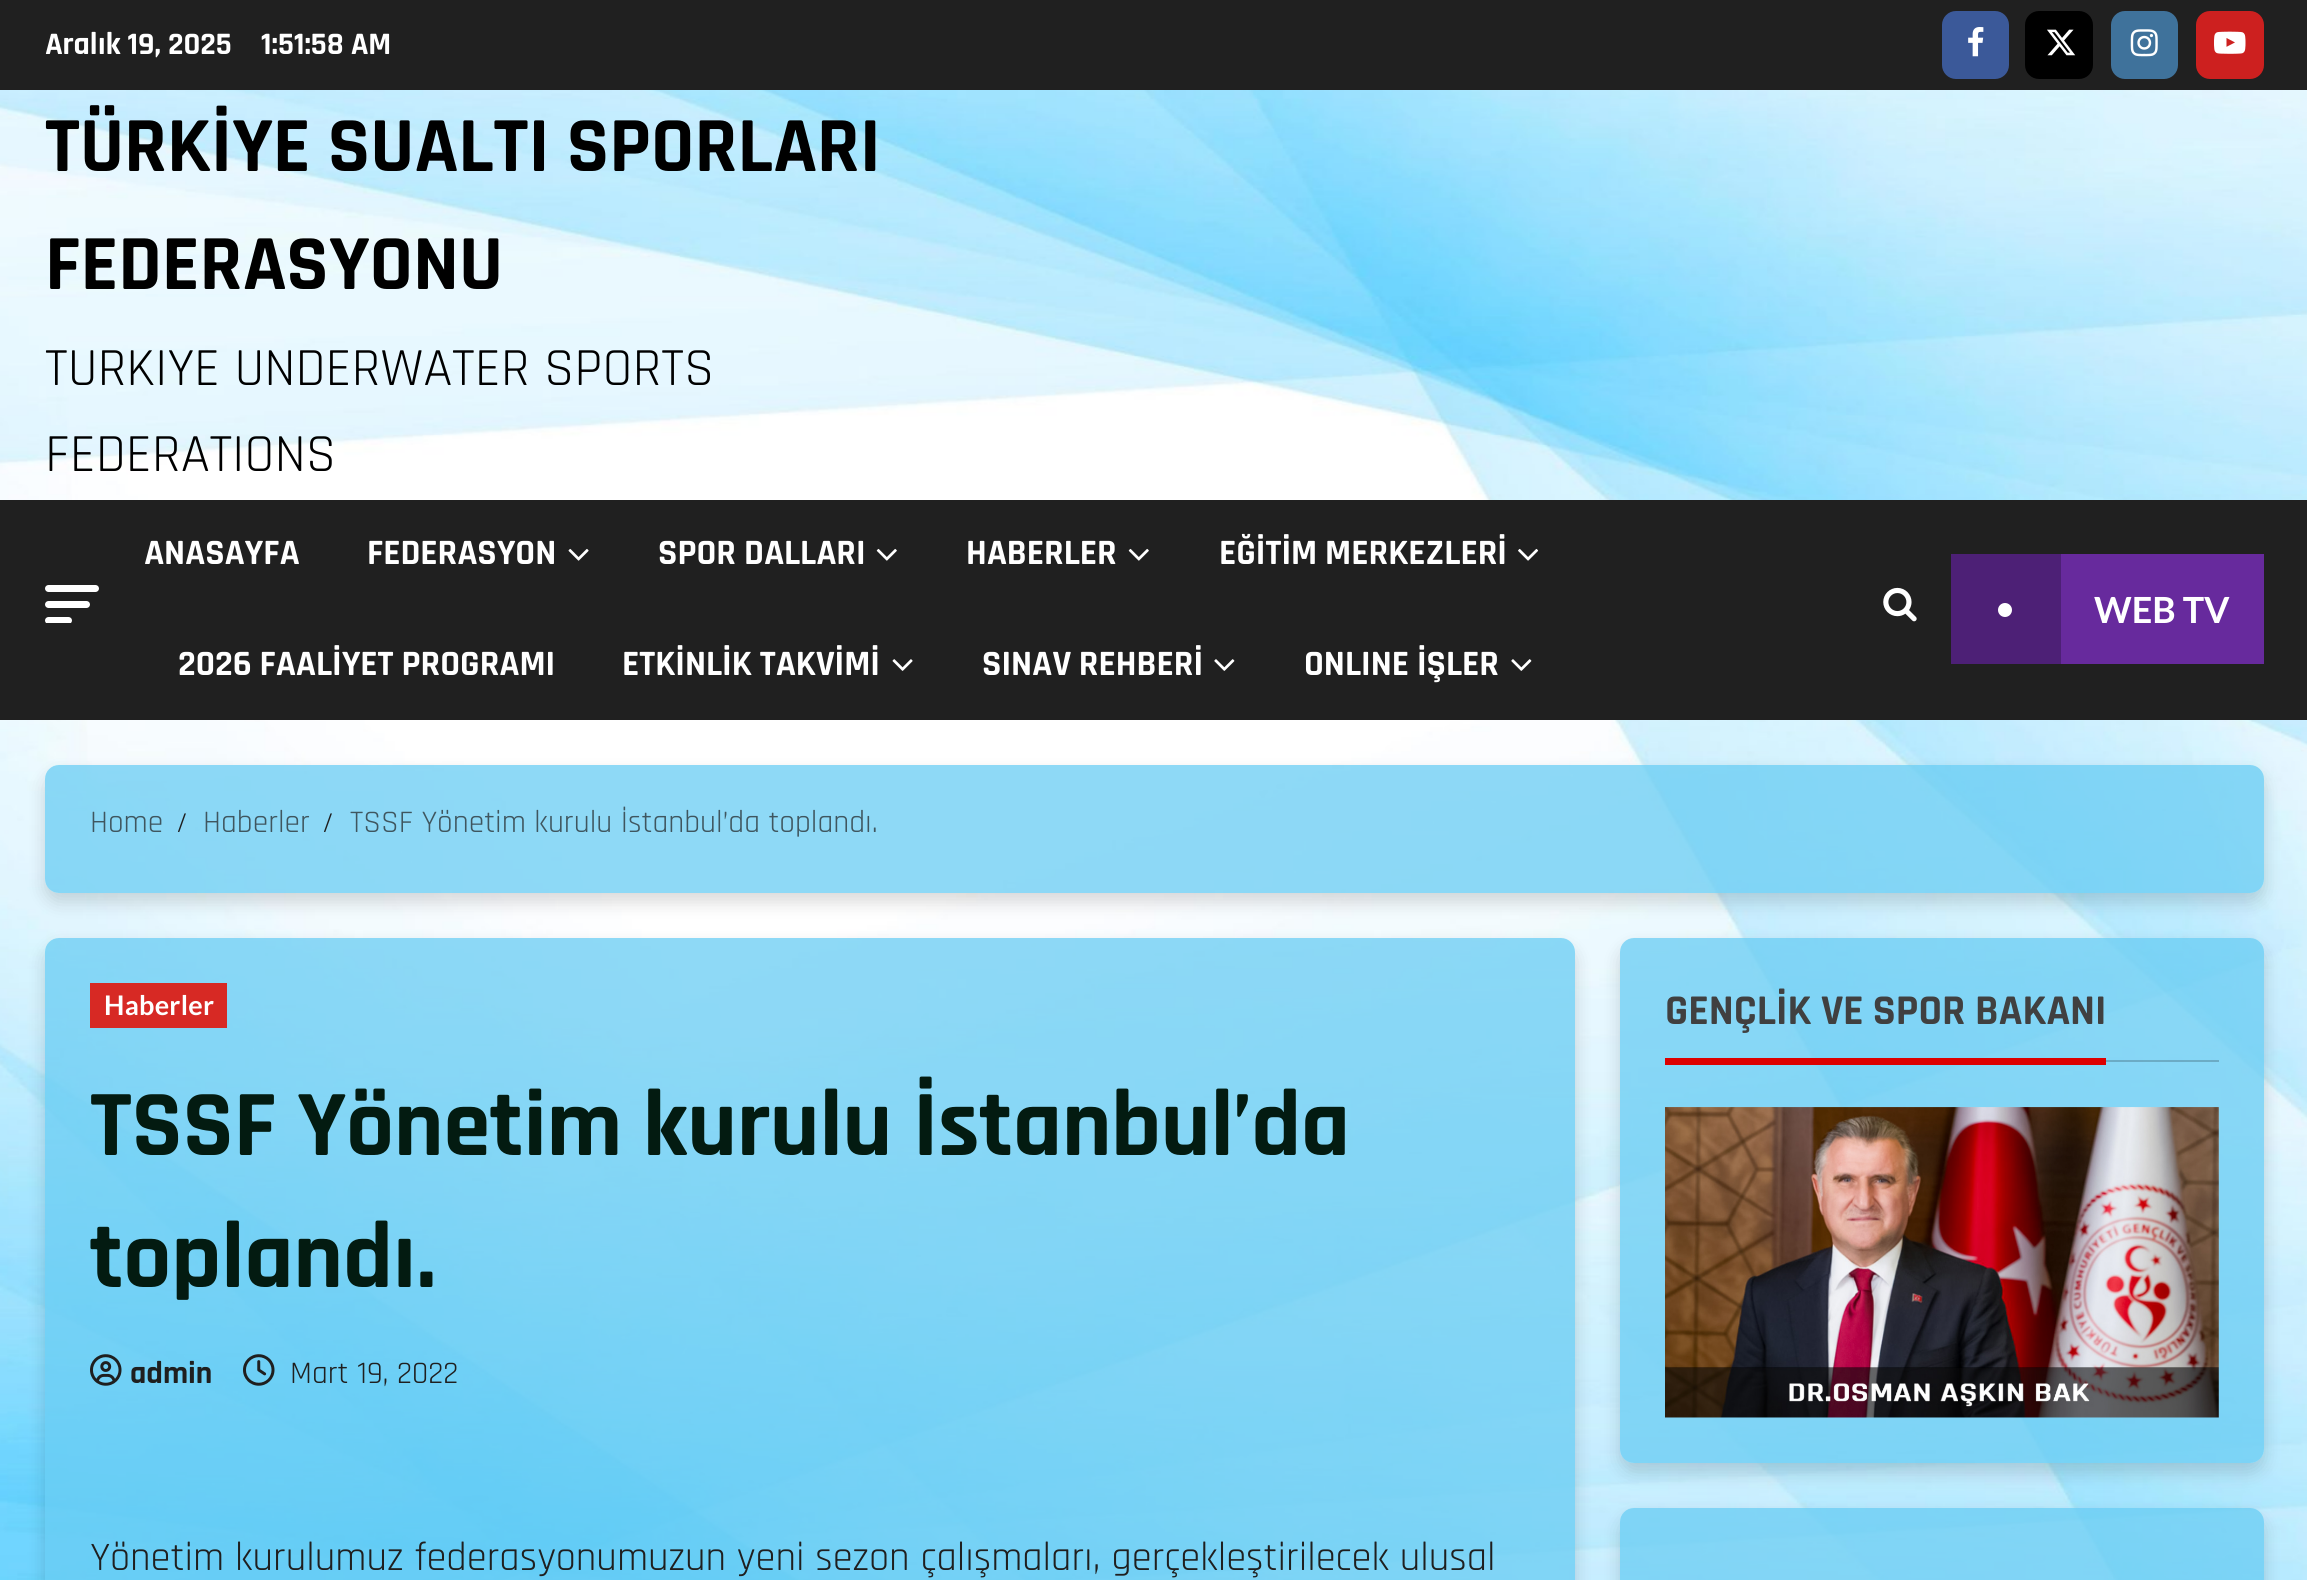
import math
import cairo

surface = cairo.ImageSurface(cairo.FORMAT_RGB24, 2307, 1580)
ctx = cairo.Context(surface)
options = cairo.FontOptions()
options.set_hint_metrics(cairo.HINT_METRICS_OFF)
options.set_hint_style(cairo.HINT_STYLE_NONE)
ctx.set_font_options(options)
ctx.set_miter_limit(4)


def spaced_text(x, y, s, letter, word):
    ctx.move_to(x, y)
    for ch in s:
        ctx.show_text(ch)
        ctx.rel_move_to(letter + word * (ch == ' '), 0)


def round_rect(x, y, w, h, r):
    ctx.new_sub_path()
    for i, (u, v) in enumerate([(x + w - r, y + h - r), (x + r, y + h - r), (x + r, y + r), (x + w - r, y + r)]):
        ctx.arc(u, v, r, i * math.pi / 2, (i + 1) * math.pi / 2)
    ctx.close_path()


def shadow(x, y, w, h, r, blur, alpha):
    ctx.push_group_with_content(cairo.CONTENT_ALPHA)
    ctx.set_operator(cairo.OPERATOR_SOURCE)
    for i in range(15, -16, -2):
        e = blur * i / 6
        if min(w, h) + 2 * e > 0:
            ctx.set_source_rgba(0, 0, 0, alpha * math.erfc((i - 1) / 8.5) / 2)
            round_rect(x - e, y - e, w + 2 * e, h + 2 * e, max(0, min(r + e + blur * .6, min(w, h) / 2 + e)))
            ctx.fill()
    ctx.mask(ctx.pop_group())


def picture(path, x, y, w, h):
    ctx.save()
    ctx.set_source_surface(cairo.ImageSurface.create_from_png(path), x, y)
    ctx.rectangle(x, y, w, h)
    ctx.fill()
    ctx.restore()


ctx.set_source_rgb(1, 1, 1)
ctx.paint()
picture("img1.png", 0, 90, 2307, 1490)
ctx.set_source_rgb(0.125, 0.125, 0.125)
ctx.rectangle(0, 0, 2307, 90)
ctx.fill()
ctx.select_font_face("Rajdhani", cairo.FONT_SLANT_NORMAL, cairo.FONT_WEIGHT_BOLD)
ctx.set_font_size(31.5)
ctx.set_source_rgb(1, 1, 1)
ctx.move_to(45, 54)
ctx.show_text("Aralık 19, 2025")
ctx.move_to(261, 54)
ctx.show_text("1:51:58 AM")
ctx.set_source_rgb(0.231, 0.349, 0.6)
round_rect(1942, 11, 67, 68, 14)
ctx.fill()
picture("img2.png", 1968, 27, 16, 30)
ctx.set_source_rgb(0, 0, 0)
round_rect(2025, 11, 68, 68, 14)
ctx.fill()
picture("img3.png", 2047, 29, 29, 27)
ctx.set_source_rgb(0.247, 0.447, 0.608)
round_rect(2111, 11, 67, 68, 14)
ctx.fill()
picture("img4.png", 2130, 29, 28, 28)
ctx.set_source_rgb(0.804, 0.125, 0.122)
round_rect(2196, 11, 68, 68, 14)
ctx.fill()
picture("img5.png", 2214, 31, 32, 23)
ctx.set_font_size(78.75)
ctx.set_source_rgb(0, 0, 0)
ctx.move_to(45, 171)
ctx.show_text("TÜRKİYE SUALTI SPORLARI")
ctx.move_to(45, 289)
ctx.show_text("FEDERASYONU")
ctx.select_font_face("Rajdhani")
ctx.set_font_size(54)
ctx.move_to(45, 385)
ctx.show_text("TURKIYE UNDERWATER SPORTS")
ctx.move_to(45, 471)
ctx.show_text("FEDERATIONS")
ctx.set_source_rgb(0.125, 0.125, 0.125)
ctx.rectangle(0, 500, 2307, 220)
ctx.fill()
ctx.set_source_rgb(1, 1, 1)
round_rect(45, 585, 54, 7, 3.5)
ctx.fill()
round_rect(45, 601, 45, 7, 3.5)
ctx.fill()
ctx.save()
ctx.rectangle(45, 585, 54, 38)
ctx.clip()
round_rect(45, 617, 27, 7, 3.5)
ctx.fill()
ctx.restore()
ctx.select_font_face("Rajdhani", cairo.FONT_SLANT_NORMAL, cairo.FONT_WEIGHT_BOLD)
ctx.set_font_size(36)
ctx.move_to(144, 564)
ctx.show_text("ANASAYFA")
ctx.move_to(367, 564)
ctx.show_text("FEDERASYON")
picture("img6.png", 568, 548, 21, 13)
ctx.move_to(658, 564)
ctx.show_text("SPOR DALLARI")
picture("img7.png", 876, 548, 21, 13)
ctx.move_to(966, 564)
ctx.show_text("HABERLER")
picture("img7.png", 1128, 548, 21, 13)
ctx.move_to(1219, 564)
ctx.show_text("EĞİTİM MERKEZLERİ")
picture("img8.png", 1518, 548, 21, 13)
ctx.move_to(178, 675)
ctx.show_text("2026 FAALİYET PROGRAMI")
ctx.move_to(622, 675)
ctx.show_text("ETKİNLİK TAKVİMİ")
picture("img9.png", 892, 659, 21, 12)
ctx.move_to(982, 675)
ctx.show_text("SINAV REHBERİ")
picture("img10.png", 1214, 659, 21, 12)
ctx.move_to(1304, 675)
ctx.show_text("ONLINE İŞLER")
picture("img10.png", 1511, 659, 21, 12)
picture("img11.png", 1883, 587, 34, 35)
ctx.set_source_rgb(0.404, 0.165, 0.616)
ctx.rectangle(2061, 554, 203, 110)
ctx.fill()
ctx.set_source_rgb(0.302, 0.125, 0.463)
ctx.rectangle(1951, 554, 110, 110)
ctx.fill()
ctx.set_source_rgb(1, 1, 1)
ctx.arc(2005, 610, 7, 0, 2 * math.pi)
ctx.fill()
ctx.select_font_face("Lato", cairo.FONT_SLANT_NORMAL, cairo.FONT_WEIGHT_BOLD)
ctx.move_to(2094, 623)
ctx.show_text("WEB TV")
ctx.save()
ctx.set_fill_rule(cairo.FILL_RULE_EVEN_ODD)
ctx.new_path()
ctx.move_to(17, 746)
ctx.line_to(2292, 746)
ctx.line_to(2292, 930)
ctx.line_to(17, 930)
ctx.close_path()
ctx.move_to(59, 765)
ctx.line_to(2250, 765)
ctx.curve_to(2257.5, 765, 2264, 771.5, 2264, 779)
ctx.line_to(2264, 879)
ctx.curve_to(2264, 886.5, 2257.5, 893, 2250, 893)
ctx.line_to(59, 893)
ctx.curve_to(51.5, 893, 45, 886.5, 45, 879)
ctx.line_to(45, 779)
ctx.curve_to(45, 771.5, 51.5, 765, 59, 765)
ctx.close_path()
ctx.clip()
ctx.set_source_rgb(0, 0, 0)
shadow(45, 774, 2219, 128, 14, 9, 0.15)
ctx.restore()
ctx.set_source_rgba(0.408, 0.8, 0.953, 0.75)
round_rect(45, 765, 2219, 128, 14)
ctx.fill()
ctx.select_font_face("Rajdhani")
ctx.set_font_size(31.5)
ctx.set_source_rgb(0.247, 0.337, 0.373)
ctx.move_to(90, 832)
ctx.show_text("Home")
ctx.set_font_size(29)
ctx.set_source_rgb(0.122, 0.122, 0.122)
ctx.move_to(176, 832)
ctx.show_text("/")
ctx.set_font_size(31.5)
ctx.set_source_rgb(0.247, 0.337, 0.373)
ctx.move_to(203, 832)
ctx.show_text("Haberler")
ctx.set_font_size(29)
ctx.set_source_rgb(0.122, 0.122, 0.122)
ctx.move_to(322, 832)
ctx.show_text("/")
ctx.set_font_size(31.5)
ctx.set_source_rgb(0.247, 0.337, 0.373)
ctx.move_to(350, 832)
ctx.show_text("TSSF Yönetim kurulu İstanbul’da toplandı.")
ctx.save()
ctx.set_fill_rule(cairo.FILL_RULE_EVEN_ODD)
ctx.new_path()
ctx.move_to(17, 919)
ctx.line_to(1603, 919)
ctx.line_to(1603, 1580)
ctx.line_to(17, 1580)
ctx.close_path()
ctx.move_to(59, 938)
ctx.line_to(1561, 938)
ctx.curve_to(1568.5, 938, 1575, 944.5, 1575, 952)
ctx.line_to(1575, 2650)
ctx.curve_to(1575, 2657.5, 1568.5, 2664, 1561, 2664)
ctx.line_to(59, 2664)
ctx.curve_to(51.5, 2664, 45, 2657.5, 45, 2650)
ctx.line_to(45, 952)
ctx.curve_to(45, 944.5, 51.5, 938, 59, 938)
ctx.close_path()
ctx.clip()
ctx.set_source_rgb(0, 0, 0)
shadow(45, 947, 1530, 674, 14, 9, 0.15)
ctx.restore()
ctx.set_source_rgba(0.408, 0.8, 0.953, 0.75)
round_rect(45, 938, 1530, 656, 14)
ctx.fill()
ctx.set_source_rgb(0.843, 0.161, 0.141)
ctx.rectangle(90, 983, 137, 45)
ctx.fill()
ctx.select_font_face("Lato", cairo.FONT_SLANT_NORMAL, cairo.FONT_WEIGHT_BOLD)
ctx.set_font_size(27)
ctx.set_source_rgb(1, 1, 1)
spaced_text(104, 1015, "Haberler", 0.25, 0)
ctx.select_font_face("Rajdhani", cairo.FONT_SLANT_NORMAL, cairo.FONT_WEIGHT_BOLD)
ctx.set_font_size(94.5)
ctx.set_source_rgb(0.012, 0.106, 0.067)
ctx.move_to(90, 1155)
ctx.show_text("TSSF Yönetim kurulu İstanbul’da")
ctx.move_to(90, 1287)
ctx.show_text("toplandı.")
picture("img12.png", 90, 1354, 32, 32)
ctx.set_font_size(31.5)
ctx.set_source_rgb(0.122, 0.122, 0.122)
ctx.move_to(130, 1383)
ctx.show_text("admin")
picture("img13.png", 243, 1354, 32, 32)
ctx.select_font_face("Rajdhani")
ctx.move_to(290, 1383)
ctx.show_text("Mart 19, 2022")
ctx.set_font_size(40.5)
ctx.move_to(90, 1570)
ctx.show_text("Yönetim kurulumuz federasyonumuzun yeni sezon çalışmaları, gerçekleştirilecek ulusal")
ctx.save()
ctx.set_fill_rule(cairo.FILL_RULE_EVEN_ODD)
ctx.new_path()
ctx.move_to(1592, 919)
ctx.line_to(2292, 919)
ctx.line_to(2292, 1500)
ctx.line_to(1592, 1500)
ctx.close_path()
ctx.move_to(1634, 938)
ctx.line_to(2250, 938)
ctx.curve_to(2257.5, 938, 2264, 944.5, 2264, 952)
ctx.line_to(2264, 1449)
ctx.curve_to(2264, 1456.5, 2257.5, 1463, 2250, 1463)
ctx.line_to(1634, 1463)
ctx.curve_to(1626.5, 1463, 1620, 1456.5, 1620, 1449)
ctx.line_to(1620, 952)
ctx.curve_to(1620, 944.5, 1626.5, 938, 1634, 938)
ctx.close_path()
ctx.clip()
ctx.set_source_rgb(0, 0, 0)
shadow(1620, 947, 644, 525, 14, 9, 0.15)
ctx.restore()
ctx.set_source_rgba(0.408, 0.8, 0.953, 0.75)
round_rect(1620, 938, 644, 525, 14)
ctx.fill()
ctx.set_source_rgba(0, 0, 0, 0.2)
ctx.rectangle(2106, 1060, 113, 2)
ctx.fill()
ctx.select_font_face("Rajdhani", cairo.FONT_SLANT_NORMAL, cairo.FONT_WEIGHT_BOLD)
ctx.set_font_size(42.75)
ctx.set_source_rgb(0.251, 0.251, 0.251)
ctx.move_to(1665, 1024)
ctx.show_text("GENÇLİK VE SPOR BAKANI")
ctx.set_source_rgb(0.867, 0, 0)
ctx.rectangle(1665, 1058, 441, 7)
ctx.fill()
picture("img14.png", 1665, 1107, 554, 311)
ctx.save()
ctx.set_fill_rule(cairo.FILL_RULE_EVEN_ODD)
ctx.new_path()
ctx.move_to(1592, 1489)
ctx.line_to(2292, 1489)
ctx.line_to(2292, 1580)
ctx.line_to(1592, 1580)
ctx.close_path()
ctx.move_to(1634, 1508)
ctx.line_to(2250, 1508)
ctx.curve_to(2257.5, 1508, 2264, 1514.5, 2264, 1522)
ctx.line_to(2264, 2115)
ctx.curve_to(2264, 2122.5, 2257.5, 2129, 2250, 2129)
ctx.line_to(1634, 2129)
ctx.curve_to(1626.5, 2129, 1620, 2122.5, 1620, 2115)
ctx.line_to(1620, 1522)
ctx.curve_to(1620, 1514.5, 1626.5, 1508, 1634, 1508)
ctx.close_path()
ctx.clip()
ctx.set_source_rgb(0, 0, 0)
shadow(1620, 1517, 644, 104, 14, 9, 0.15)
ctx.restore()
ctx.set_source_rgba(0.408, 0.8, 0.953, 0.75)
round_rect(1620, 1508, 644, 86, 14)
ctx.fill()
surface.write_to_png("page.png")
